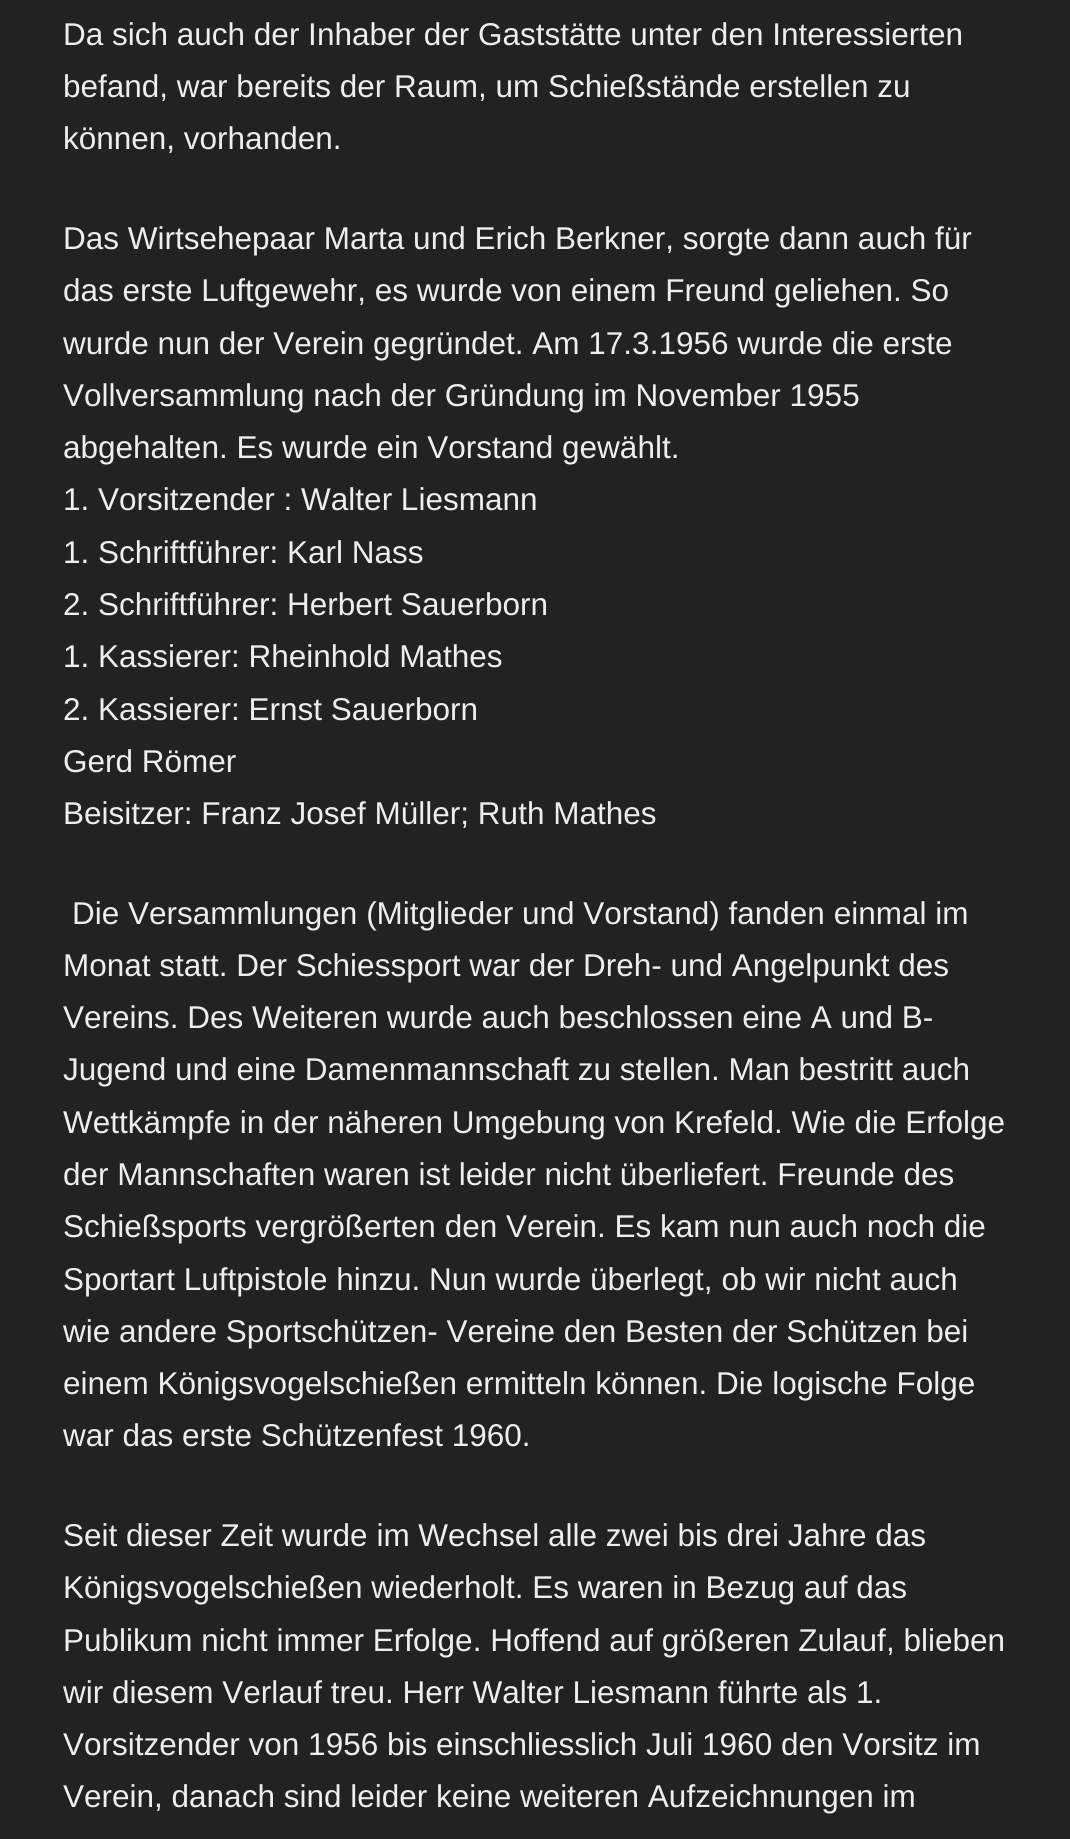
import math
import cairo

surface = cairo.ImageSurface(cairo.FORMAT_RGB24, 1070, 1839)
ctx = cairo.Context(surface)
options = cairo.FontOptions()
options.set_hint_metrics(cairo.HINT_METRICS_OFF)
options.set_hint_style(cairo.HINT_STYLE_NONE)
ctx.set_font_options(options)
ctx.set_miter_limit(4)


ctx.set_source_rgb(0.133, 0.133, 0.133)
ctx.paint()
ctx.select_font_face("Liberation Sans")
ctx.set_font_size(31.5)
ctx.set_source_rgb(0.933, 0.933, 0.933)
ctx.move_to(63, 45)
ctx.show_text("Da sich auch der Inhaber der Gaststätte unter den Interessierten")
ctx.move_to(63, 97)
ctx.show_text("befand, war bereits der Raum, um Schießstände erstellen zu")
ctx.move_to(63, 149)
ctx.show_text("können, vorhanden.")
ctx.move_to(63, 249)
ctx.show_text("Das Wirtsehepaar Marta und Erich Berkner, sorgte dann auch für")
ctx.move_to(63, 301)
ctx.show_text("das erste Luftgewehr, es wurde von einem Freund geliehen. So")
ctx.move_to(63, 354)
ctx.show_text("wurde nun der Verein gegründet. Am 17.3.1956 wurde die erste")
ctx.move_to(63, 406)
ctx.show_text("Vollversammlung nach der Gründung im November 1955")
ctx.move_to(63, 458)
ctx.show_text("abgehalten. Es wurde ein Vorstand gewählt.")
ctx.move_to(63, 510)
ctx.show_text("1. Vorsitzender : Walter Liesmann")
ctx.move_to(63, 563)
ctx.show_text("1. Schriftführer: Karl Nass")
ctx.move_to(63, 615)
ctx.show_text("2. Schriftführer: Herbert Sauerborn")
ctx.move_to(63, 667)
ctx.show_text("1. Kassierer: Rheinhold Mathes")
ctx.move_to(63, 720)
ctx.show_text("2. Kassierer: Ernst Sauerborn")
ctx.move_to(63, 772)
ctx.show_text("Gerd Römer")
ctx.move_to(63, 824)
ctx.show_text("Beisitzer: Franz Josef Müller; Ruth Mathes")
ctx.move_to(72, 924)
ctx.show_text("Die Versammlungen (Mitglieder und Vorstand) fanden einmal im")
ctx.move_to(63, 976)
ctx.show_text("Monat statt. Der Schiessport war der Dreh- und Angelpunkt des")
ctx.move_to(63, 1028)
ctx.show_text("Vereins. Des Weiteren wurde auch beschlossen eine A und B-")
ctx.move_to(63, 1080)
ctx.show_text("Jugend und eine Damenmannschaft zu stellen. Man bestritt auch")
ctx.move_to(63, 1133)
ctx.show_text("Wettkämpfe in der näheren Umgebung von Krefeld. Wie die Erfolge")
ctx.move_to(63, 1185)
ctx.show_text("der Mannschaften waren ist leider nicht überliefert. Freunde des")
ctx.move_to(63, 1237)
ctx.show_text("Schießsports vergrößerten den Verein. Es kam nun auch noch die")
ctx.move_to(63, 1290)
ctx.show_text("Sportart Luftpistole hinzu. Nun wurde überlegt, ob wir nicht auch")
ctx.move_to(63, 1342)
ctx.show_text("wie andere Sportschützen- Vereine den Besten der Schützen bei")
ctx.move_to(63, 1394)
ctx.show_text("einem Königsvogelschießen ermitteln können. Die logische Folge")
ctx.move_to(63, 1446)
ctx.show_text("war das erste Schützenfest 1960.")
ctx.move_to(63, 1546)
ctx.show_text("Seit dieser Zeit wurde im Wechsel alle zwei bis drei Jahre das")
ctx.move_to(63, 1598)
ctx.show_text("Königsvogelschießen wiederholt. Es waren in Bezug auf das")
ctx.move_to(63, 1651)
ctx.show_text("Publikum nicht immer Erfolge. Hoffend auf größeren Zulauf, blieben")
ctx.move_to(63, 1703)
ctx.show_text("wir diesem Verlauf treu. Herr Walter Liesmann führte als 1.")
ctx.move_to(63, 1755)
ctx.show_text("Vorsitzender von 1956 bis einschliesslich Juli 1960 den Vorsitz im")
ctx.move_to(63, 1807)
ctx.show_text("Verein, danach sind leider keine weiteren Aufzeichnungen im")
surface.write_to_png("page.png")
